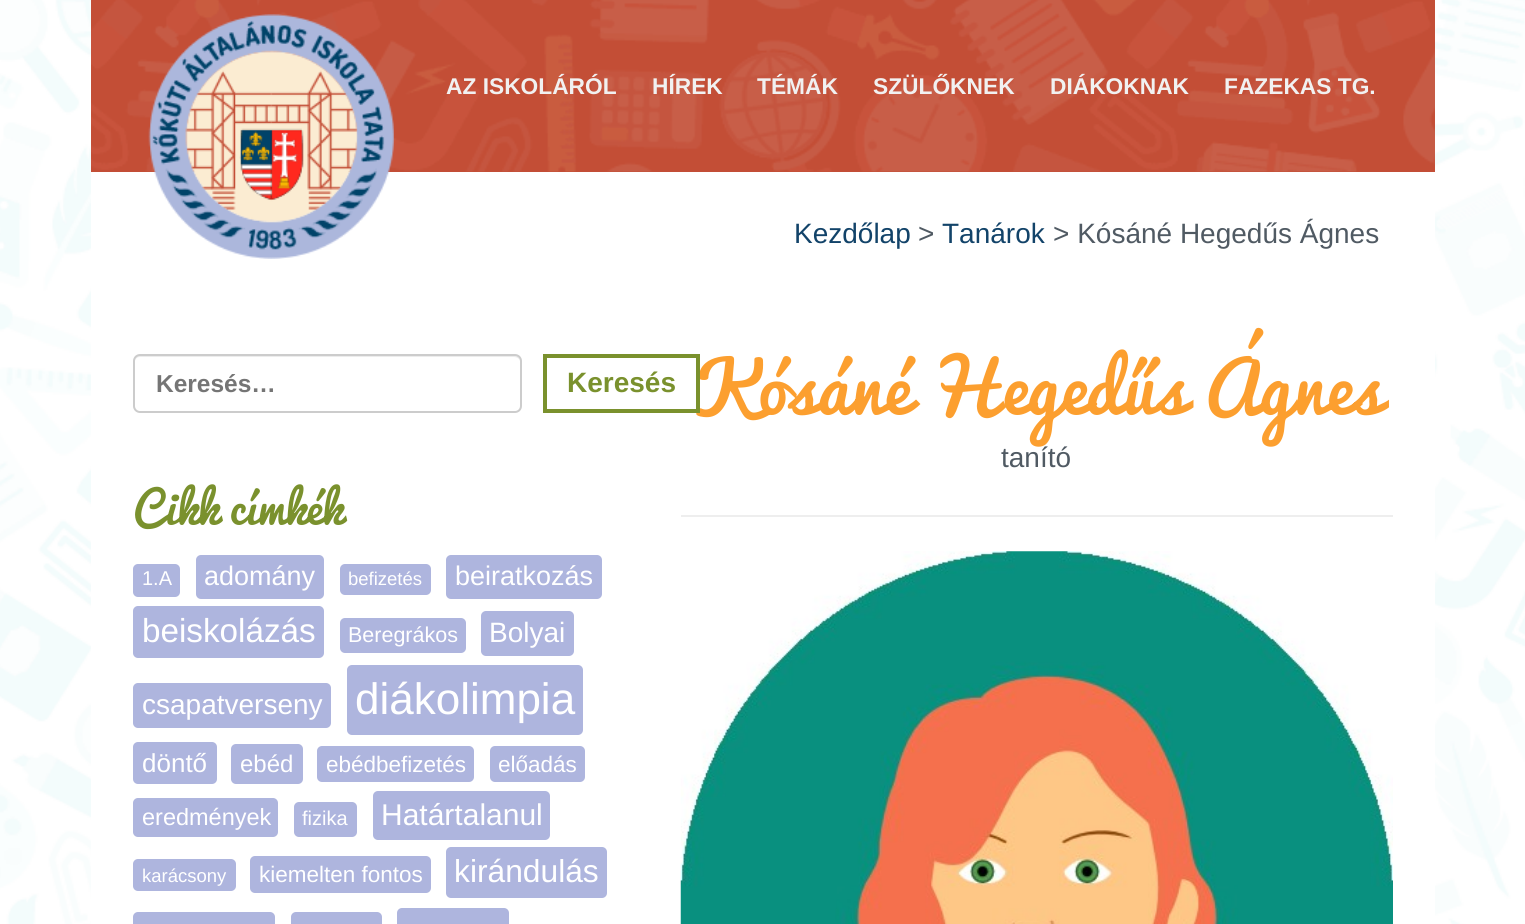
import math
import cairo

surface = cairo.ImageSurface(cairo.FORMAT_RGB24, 1525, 924)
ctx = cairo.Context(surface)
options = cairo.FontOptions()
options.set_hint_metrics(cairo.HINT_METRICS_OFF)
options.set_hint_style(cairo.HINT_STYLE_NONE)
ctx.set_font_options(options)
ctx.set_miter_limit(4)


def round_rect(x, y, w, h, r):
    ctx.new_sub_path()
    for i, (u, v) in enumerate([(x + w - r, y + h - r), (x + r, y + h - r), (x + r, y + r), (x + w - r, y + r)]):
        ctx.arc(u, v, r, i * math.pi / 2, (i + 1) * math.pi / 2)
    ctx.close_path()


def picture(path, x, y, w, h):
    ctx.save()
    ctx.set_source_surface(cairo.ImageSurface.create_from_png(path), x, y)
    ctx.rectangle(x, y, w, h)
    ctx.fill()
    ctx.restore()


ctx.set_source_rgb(1, 1, 1)
ctx.paint()
picture("img1.png", 0, 0, 1525, 924)
ctx.set_source_rgb(0.765, 0.306, 0.212)
ctx.rectangle(91, 171, 1344, 1)
ctx.fill()
picture("img2.png", 91, 0, 1344, 172)
ctx.set_source_rgb(1, 1, 1)
ctx.rectangle(91, 172, 1344, 752)
ctx.fill()
picture("img3.png", 148, 14, 246, 245)
ctx.select_font_face("Liberation Sans", cairo.FONT_SLANT_NORMAL, cairo.FONT_WEIGHT_BOLD)
ctx.set_font_size(22.75)
ctx.set_source_rgb(0.945, 0.945, 0.945)
ctx.move_to(446, 94)
ctx.show_text("AZ ISKOLÁRÓL")
ctx.move_to(652, 94)
ctx.show_text("HÍREK")
ctx.move_to(757, 94)
ctx.show_text("TÉMÁK")
ctx.move_to(873, 94)
ctx.show_text("SZÜLŐKNEK")
ctx.move_to(1050, 94)
ctx.show_text("DIÁKOKNAK")
ctx.move_to(1224, 94)
ctx.show_text("FAZEKAS TG.")
ctx.select_font_face("Liberation Sans")
ctx.set_font_size(28)
ctx.set_source_rgb(0.071, 0.263, 0.412)
ctx.move_to(794, 243)
ctx.show_text("Kezdőlap")
ctx.set_source_rgb(0.314, 0.353, 0.388)
ctx.move_to(918, 243)
ctx.show_text(">")
ctx.set_source_rgb(0.071, 0.263, 0.412)
ctx.move_to(942, 243)
ctx.show_text("Tanárok")
ctx.set_source_rgb(0.314, 0.353, 0.388)
ctx.move_to(1053, 243)
ctx.show_text("> Kósáné Hegedűs Ágnes")
ctx.set_source_rgb(0.925, 0.925, 0.925)
ctx.new_path()
ctx.move_to(140, 357)
ctx.line_to(514, 357)
ctx.curve_to(517, 357, 520, 359, 520, 362)
ctx.curve_to(520, 359, 519, 355, 515, 355)
ctx.line_to(140, 355)
ctx.curve_to(136, 355, 135, 359, 135, 362)
ctx.curve_to(135, 359, 137, 357, 140, 357)
ctx.close_path()
ctx.fill()
round_rect(134, 355, 387, 57, 6)
ctx.set_source_rgb(0.8, 0.8, 0.8)
ctx.stroke()
ctx.select_font_face("Liberation Sans", cairo.FONT_SLANT_NORMAL, cairo.FONT_WEIGHT_BOLD)
ctx.set_font_size(24.5)
ctx.set_source_rgb(0.459, 0.459, 0.459)
ctx.move_to(156, 392)
ctx.show_text("Keresés…")
ctx.select_font_face("Pacifico")
ctx.set_font_size(70)
ctx.set_source_rgb(0.988, 0.624, 0.184)
ctx.move_to(692, 415)
ctx.show_text("Kósáné Hegedűs Ágnes")
ctx.rectangle(545, 356, 153, 55)
ctx.set_source_rgb(0.478, 0.569, 0.176)
ctx.set_line_width(4)
ctx.stroke()
ctx.select_font_face("Liberation Sans", cairo.FONT_SLANT_NORMAL, cairo.FONT_WEIGHT_BOLD)
ctx.set_font_size(28)
ctx.move_to(567, 392)
ctx.show_text("Keresés")
ctx.select_font_face("Pacifico")
ctx.set_font_size(43.75)
ctx.move_to(133, 525)
ctx.show_text("Cikk címkék")
ctx.set_source_rgb(0.682, 0.71, 0.871)
round_rect(133, 564, 47, 33, 5)
ctx.fill()
ctx.select_font_face("Liberation Sans")
ctx.set_font_size(20)
ctx.set_source_rgb(1, 1, 1)
ctx.move_to(142, 585)
ctx.show_text("1.A")
ctx.set_source_rgb(0.682, 0.71, 0.871)
round_rect(196, 555, 128, 44, 5)
ctx.fill()
ctx.set_font_size(27)
ctx.set_source_rgb(1, 1, 1)
ctx.move_to(204, 585)
ctx.show_text("adomány")
ctx.set_source_rgb(0.682, 0.71, 0.871)
round_rect(340, 564, 91, 31, 5)
ctx.fill()
ctx.set_font_size(18.5)
ctx.set_source_rgb(1, 1, 1)
ctx.move_to(348, 585)
ctx.show_text("befizetés")
ctx.set_source_rgb(0.682, 0.71, 0.871)
round_rect(446, 555, 156, 44, 5)
ctx.fill()
ctx.set_font_size(27)
ctx.set_source_rgb(1, 1, 1)
ctx.move_to(455, 585)
ctx.show_text("beiratkozás")
ctx.set_source_rgb(0.682, 0.71, 0.871)
round_rect(133, 606, 191, 52, 5)
ctx.fill()
ctx.set_font_size(33.25)
ctx.set_source_rgb(1, 1, 1)
ctx.move_to(142, 642)
ctx.show_text("beiskolázás")
ctx.set_source_rgb(0.682, 0.71, 0.871)
round_rect(340, 618, 126, 35, 5)
ctx.fill()
ctx.set_font_size(21.5)
ctx.set_source_rgb(1, 1, 1)
ctx.move_to(348, 642)
ctx.show_text("Beregrákos")
ctx.set_source_rgb(0.682, 0.71, 0.871)
round_rect(481, 611, 93, 45, 5)
ctx.fill()
ctx.set_font_size(28)
ctx.set_source_rgb(1, 1, 1)
ctx.move_to(489, 642)
ctx.show_text("Bolyai")
ctx.set_source_rgb(0.682, 0.71, 0.871)
round_rect(133, 683, 198, 45, 5)
ctx.fill()
ctx.set_source_rgb(1, 1, 1)
ctx.move_to(142, 714)
ctx.show_text("csapatverseny")
ctx.set_source_rgb(0.682, 0.71, 0.871)
round_rect(347, 665, 236, 70, 5)
ctx.fill()
ctx.set_font_size(44)
ctx.set_source_rgb(1, 1, 1)
ctx.move_to(355, 714)
ctx.show_text("diákolimpia")
ctx.set_source_rgb(0.682, 0.71, 0.871)
round_rect(133, 742, 84, 42, 5)
ctx.fill()
ctx.set_font_size(26)
ctx.set_source_rgb(1, 1, 1)
ctx.move_to(142, 772)
ctx.show_text("döntő")
ctx.set_source_rgb(0.682, 0.71, 0.871)
round_rect(231, 744, 72, 40, 5)
ctx.fill()
ctx.set_font_size(24)
ctx.set_source_rgb(1, 1, 1)
ctx.move_to(240, 772)
ctx.show_text("ebéd")
ctx.set_source_rgb(0.682, 0.71, 0.871)
round_rect(317, 746, 157, 36, 5)
ctx.fill()
ctx.set_font_size(22.5)
ctx.set_source_rgb(1, 1, 1)
ctx.move_to(326, 772)
ctx.show_text("ebédbefizetés")
ctx.set_source_rgb(0.682, 0.71, 0.871)
round_rect(490, 746, 95, 36, 5)
ctx.fill()
ctx.set_source_rgb(1, 1, 1)
ctx.move_to(498, 772)
ctx.show_text("előadás")
ctx.set_source_rgb(0.682, 0.71, 0.871)
round_rect(133, 798, 145, 39, 5)
ctx.fill()
ctx.set_font_size(23.5)
ctx.set_source_rgb(1, 1, 1)
ctx.move_to(142, 825)
ctx.show_text("eredmények")
ctx.set_source_rgb(0.682, 0.71, 0.871)
round_rect(294, 802, 63, 35, 5)
ctx.fill()
ctx.set_font_size(20)
ctx.set_source_rgb(1, 1, 1)
ctx.move_to(302, 825)
ctx.show_text("fizika")
ctx.set_source_rgb(0.682, 0.71, 0.871)
round_rect(373, 791, 177, 49, 5)
ctx.fill()
ctx.set_font_size(30)
ctx.set_source_rgb(1, 1, 1)
ctx.move_to(381, 825)
ctx.show_text("Határtalanul")
ctx.set_source_rgb(0.682, 0.71, 0.871)
round_rect(133, 859, 103, 32, 5)
ctx.fill()
ctx.set_font_size(18.5)
ctx.set_source_rgb(1, 1, 1)
ctx.move_to(142, 882)
ctx.show_text("karácsony")
ctx.set_source_rgb(0.682, 0.71, 0.871)
round_rect(250, 856, 181, 37, 5)
ctx.fill()
ctx.set_font_size(22.5)
ctx.set_source_rgb(1, 1, 1)
ctx.move_to(259, 882)
ctx.show_text("kiemelten fontos")
ctx.set_source_rgb(0.682, 0.71, 0.871)
round_rect(446, 847, 161, 51, 5)
ctx.fill()
ctx.set_font_size(31.75)
ctx.set_source_rgb(1, 1, 1)
ctx.move_to(454, 882)
ctx.show_text("kirándulás")
ctx.set_source_rgb(0.682, 0.71, 0.871)
round_rect(133, 912, 142, 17, 5)
ctx.fill()
round_rect(291, 912, 91, 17, 5)
ctx.fill()
round_rect(397, 908, 112, 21, 5)
ctx.fill()
ctx.set_font_size(28)
ctx.set_source_rgb(0.314, 0.353, 0.388)
ctx.move_to(1001, 467)
ctx.show_text("tanító")
ctx.set_source_rgb(0.933, 0.933, 0.933)
ctx.rectangle(681, 515, 712, 2)
ctx.fill()
picture("img4.png", 680, 551, 713, 373)
surface.write_to_png("page.png")
